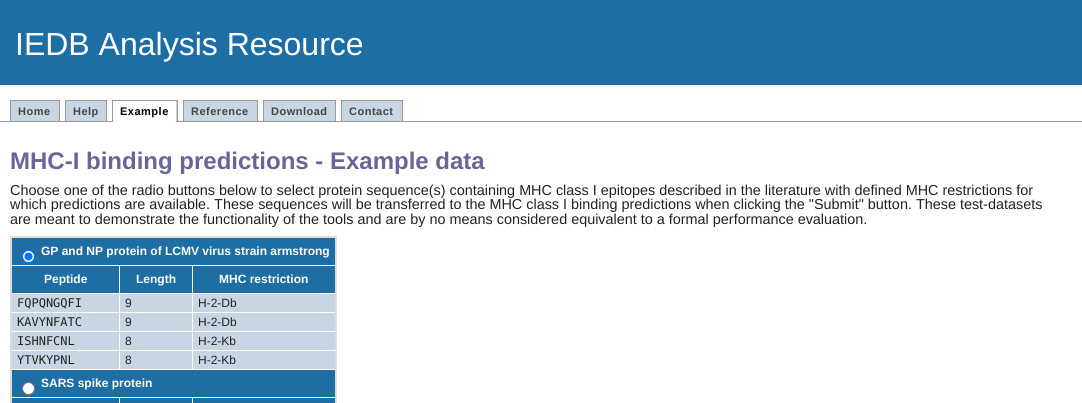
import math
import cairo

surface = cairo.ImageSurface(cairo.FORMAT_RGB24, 1082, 403)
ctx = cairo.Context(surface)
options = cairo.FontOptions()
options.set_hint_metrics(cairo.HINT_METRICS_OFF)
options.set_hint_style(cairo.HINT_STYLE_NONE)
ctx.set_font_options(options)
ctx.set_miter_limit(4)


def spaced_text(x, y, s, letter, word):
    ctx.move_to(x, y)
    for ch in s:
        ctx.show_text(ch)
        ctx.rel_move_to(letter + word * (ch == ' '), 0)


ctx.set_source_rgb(1, 1, 1)
ctx.paint()
ctx.set_source_rgb(0.114, 0.431, 0.647)
ctx.rectangle(0, 0, 1082, 85)
ctx.fill()
ctx.select_font_face("Liberation Sans")
ctx.set_font_size(32)
ctx.set_source_rgb(1, 1, 1)
ctx.move_to(15, 55)
ctx.show_text("IEDB Analysis Resource")
ctx.set_source_rgb(0.6, 0.6, 0.6)
ctx.rectangle(0, 121, 1082, 1)
ctx.fill()
ctx.set_source_rgb(0.784, 0.839, 0.89)
ctx.rectangle(11, 101, 48, 20)
ctx.fill()
ctx.set_source_rgb(0.6, 0.6, 0.6)
ctx.rectangle(10, 100, 50, 1)
ctx.fill()
ctx.rectangle(59, 100, 1, 21)
ctx.fill()
ctx.rectangle(10, 100, 1, 21)
ctx.fill()
ctx.select_font_face("Liberation Sans", cairo.FONT_SLANT_NORMAL, cairo.FONT_WEIGHT_BOLD)
ctx.set_font_size(11)
ctx.set_source_rgb(0.267, 0.267, 0.267)
spaced_text(18, 115, "Home", 0.5, 0)
ctx.set_source_rgb(0.784, 0.839, 0.89)
ctx.rectangle(66, 101, 40, 20)
ctx.fill()
ctx.set_source_rgb(0.6, 0.6, 0.6)
ctx.rectangle(65, 100, 42, 1)
ctx.fill()
ctx.rectangle(106, 100, 1, 21)
ctx.fill()
ctx.rectangle(65, 100, 1, 21)
ctx.fill()
ctx.set_source_rgb(0.267, 0.267, 0.267)
spaced_text(73, 115, "Help", 0.5, 0)
ctx.set_source_rgb(0.784, 0.839, 0.89)
ctx.rectangle(176, 101, 1, 20)
ctx.fill()
ctx.set_source_rgb(0.6, 0.6, 0.6)
ctx.rectangle(112, 100, 66, 1)
ctx.fill()
ctx.rectangle(177, 100, 1, 21)
ctx.fill()
ctx.rectangle(112, 100, 1, 21)
ctx.fill()
ctx.set_source_rgb(0, 0, 0)
spaced_text(120, 115, "Example", 0.5, 0)
ctx.set_source_rgb(1, 1, 1)
ctx.rectangle(113, 121, 63, 1)
ctx.fill()
ctx.set_source_rgb(0.784, 0.839, 0.89)
ctx.rectangle(184, 101, 73, 20)
ctx.fill()
ctx.set_source_rgb(0.6, 0.6, 0.6)
ctx.rectangle(183, 100, 75, 1)
ctx.fill()
ctx.rectangle(257, 100, 1, 21)
ctx.fill()
ctx.rectangle(183, 100, 1, 21)
ctx.fill()
ctx.set_source_rgb(0.267, 0.267, 0.267)
spaced_text(191, 115, "Reference", 0.5, 0)
ctx.set_source_rgb(0.784, 0.839, 0.89)
ctx.rectangle(264, 101, 71, 20)
ctx.fill()
ctx.set_source_rgb(0.6, 0.6, 0.6)
ctx.rectangle(263, 100, 73, 1)
ctx.fill()
ctx.rectangle(335, 100, 1, 21)
ctx.fill()
ctx.rectangle(263, 100, 1, 21)
ctx.fill()
ctx.set_source_rgb(0.267, 0.267, 0.267)
spaced_text(271, 115, "Download", 0.5, 0)
ctx.set_source_rgb(0.784, 0.839, 0.89)
ctx.rectangle(342, 101, 60, 20)
ctx.fill()
ctx.set_source_rgb(0.6, 0.6, 0.6)
ctx.rectangle(341, 100, 62, 1)
ctx.fill()
ctx.rectangle(402, 100, 1, 21)
ctx.fill()
ctx.rectangle(341, 100, 1, 21)
ctx.fill()
ctx.set_source_rgb(0.267, 0.267, 0.267)
spaced_text(349, 115, "Contact", 0.5, 0)
ctx.set_font_size(24)
ctx.set_source_rgb(0.4, 0.4, 0.6)
ctx.move_to(10, 169)
ctx.show_text("MHC-I binding predictions - Example data")
ctx.select_font_face("Liberation Sans")
ctx.set_font_size(14.4)
ctx.set_source_rgb(0.133, 0.133, 0.133)
ctx.move_to(10, 195)
ctx.show_text("Choose one of the radio buttons below to select protein sequence(s) containing MHC class I epitopes described in the literature with defined MHC restrictions for")
ctx.move_to(10, 209)
ctx.show_text("which predictions are available. These sequences will be transferred to the MHC class I binding predictions when clicking the \"Submit\" button. These test-datasets")
ctx.move_to(10, 224)
ctx.show_text("are meant to demonstrate the functionality of the tools and are by no means considered equivalent to a formal performance evaluation.")
ctx.set_source_rgb(0.867, 0.867, 0.867)
ctx.rectangle(10, 236, 327, 2)
ctx.fill()
ctx.set_source_rgb(0.114, 0.431, 0.647)
ctx.rectangle(11, 398, 325, 5)
ctx.fill()
ctx.set_source_rgb(0.867, 0.867, 0.867)
ctx.rectangle(335, 236, 2, 167)
ctx.fill()
ctx.rectangle(10, 236, 2, 167)
ctx.fill()
ctx.set_source_rgb(0.114, 0.431, 0.647)
ctx.rectangle(12, 238, 323, 27)
ctx.fill()
ctx.set_source_rgb(1, 1, 1)
ctx.arc(28.5, 256.5, 6, 0, 2 * math.pi)
ctx.fill_preserve()
ctx.set_source_rgb(0, 0.459, 1)
ctx.set_line_width(1)
ctx.stroke()
ctx.arc(28.5, 256.5, 4, 0, 2 * math.pi)
ctx.fill()
ctx.select_font_face("Liberation Sans", cairo.FONT_SLANT_NORMAL, cairo.FONT_WEIGHT_BOLD)
ctx.set_font_size(12)
ctx.set_source_rgb(1, 1, 1)
ctx.move_to(41, 255)
ctx.show_text("GP and NP protein of LCMV virus strain armstrong")
ctx.set_source_rgb(0.114, 0.431, 0.647)
ctx.rectangle(12, 266, 107, 27)
ctx.fill()
ctx.set_source_rgb(1, 1, 1)
ctx.move_to(44, 283)
ctx.show_text("Peptide")
ctx.set_source_rgb(0.114, 0.431, 0.647)
ctx.rectangle(120, 266, 72, 27)
ctx.fill()
ctx.set_source_rgb(1, 1, 1)
ctx.move_to(136, 283)
ctx.show_text("Length")
ctx.set_source_rgb(0.114, 0.431, 0.647)
ctx.rectangle(193, 266, 142, 27)
ctx.fill()
ctx.set_source_rgb(1, 1, 1)
ctx.move_to(219, 283)
ctx.show_text("MHC restriction")
ctx.set_source_rgb(0.784, 0.839, 0.89)
ctx.rectangle(12, 294, 107, 18)
ctx.fill()
ctx.select_font_face("DejaVu Sans Mono")
ctx.set_source_rgb(0.133, 0.133, 0.133)
ctx.move_to(17, 307)
ctx.show_text("FQPQNGQFI")
ctx.set_source_rgb(0.784, 0.839, 0.89)
ctx.rectangle(120, 294, 72, 18)
ctx.fill()
ctx.select_font_face("Liberation Sans")
ctx.set_source_rgb(0.133, 0.133, 0.133)
ctx.move_to(125, 307)
ctx.show_text("9")
ctx.set_source_rgb(0.784, 0.839, 0.89)
ctx.rectangle(193, 294, 142, 18)
ctx.fill()
ctx.set_source_rgb(0.133, 0.133, 0.133)
ctx.move_to(198, 307)
ctx.show_text("H-2-Db")
ctx.set_source_rgb(0.784, 0.839, 0.89)
ctx.rectangle(12, 313, 107, 18)
ctx.fill()
ctx.select_font_face("DejaVu Sans Mono")
ctx.set_source_rgb(0.133, 0.133, 0.133)
ctx.move_to(17, 326)
ctx.show_text("KAVYNFATC")
ctx.set_source_rgb(0.784, 0.839, 0.89)
ctx.rectangle(120, 313, 72, 18)
ctx.fill()
ctx.select_font_face("Liberation Sans")
ctx.set_source_rgb(0.133, 0.133, 0.133)
ctx.move_to(125, 326)
ctx.show_text("9")
ctx.set_source_rgb(0.784, 0.839, 0.89)
ctx.rectangle(193, 313, 142, 18)
ctx.fill()
ctx.set_source_rgb(0.133, 0.133, 0.133)
ctx.move_to(198, 326)
ctx.show_text("H-2-Db")
ctx.set_source_rgb(0.784, 0.839, 0.89)
ctx.rectangle(12, 332, 107, 18)
ctx.fill()
ctx.select_font_face("DejaVu Sans Mono")
ctx.set_source_rgb(0.133, 0.133, 0.133)
ctx.move_to(17, 345)
ctx.show_text("ISHNFCNL")
ctx.set_source_rgb(0.784, 0.839, 0.89)
ctx.rectangle(120, 332, 72, 18)
ctx.fill()
ctx.select_font_face("Liberation Sans")
ctx.set_source_rgb(0.133, 0.133, 0.133)
ctx.move_to(125, 345)
ctx.show_text("8")
ctx.set_source_rgb(0.784, 0.839, 0.89)
ctx.rectangle(193, 332, 142, 18)
ctx.fill()
ctx.set_source_rgb(0.133, 0.133, 0.133)
ctx.move_to(198, 345)
ctx.show_text("H-2-Kb")
ctx.set_source_rgb(0.784, 0.839, 0.89)
ctx.rectangle(12, 351, 107, 18)
ctx.fill()
ctx.select_font_face("DejaVu Sans Mono")
ctx.set_source_rgb(0.133, 0.133, 0.133)
ctx.move_to(17, 364)
ctx.show_text("YTVKYPNL")
ctx.set_source_rgb(0.784, 0.839, 0.89)
ctx.rectangle(120, 351, 72, 18)
ctx.fill()
ctx.select_font_face("Liberation Sans")
ctx.set_source_rgb(0.133, 0.133, 0.133)
ctx.move_to(125, 364)
ctx.show_text("8")
ctx.set_source_rgb(0.784, 0.839, 0.89)
ctx.rectangle(193, 351, 142, 18)
ctx.fill()
ctx.set_source_rgb(0.133, 0.133, 0.133)
ctx.move_to(198, 364)
ctx.show_text("H-2-Kb")
ctx.set_source_rgb(0.114, 0.431, 0.647)
ctx.rectangle(12, 370, 323, 27)
ctx.fill()
ctx.set_source_rgb(1, 1, 1)
ctx.arc(28.5, 388.5, 6, 0, 2 * math.pi)
ctx.fill_preserve()
ctx.set_source_rgb(0.463, 0.463, 0.463)
ctx.stroke()
ctx.select_font_face("Liberation Sans", cairo.FONT_SLANT_NORMAL, cairo.FONT_WEIGHT_BOLD)
ctx.set_source_rgb(1, 1, 1)
ctx.move_to(41, 387)
ctx.show_text("SARS spike protein")
ctx.rectangle(119, 397, 1, 6)
ctx.fill()
ctx.rectangle(192, 397, 1, 6)
ctx.fill()
surface.write_to_png("page.png")
